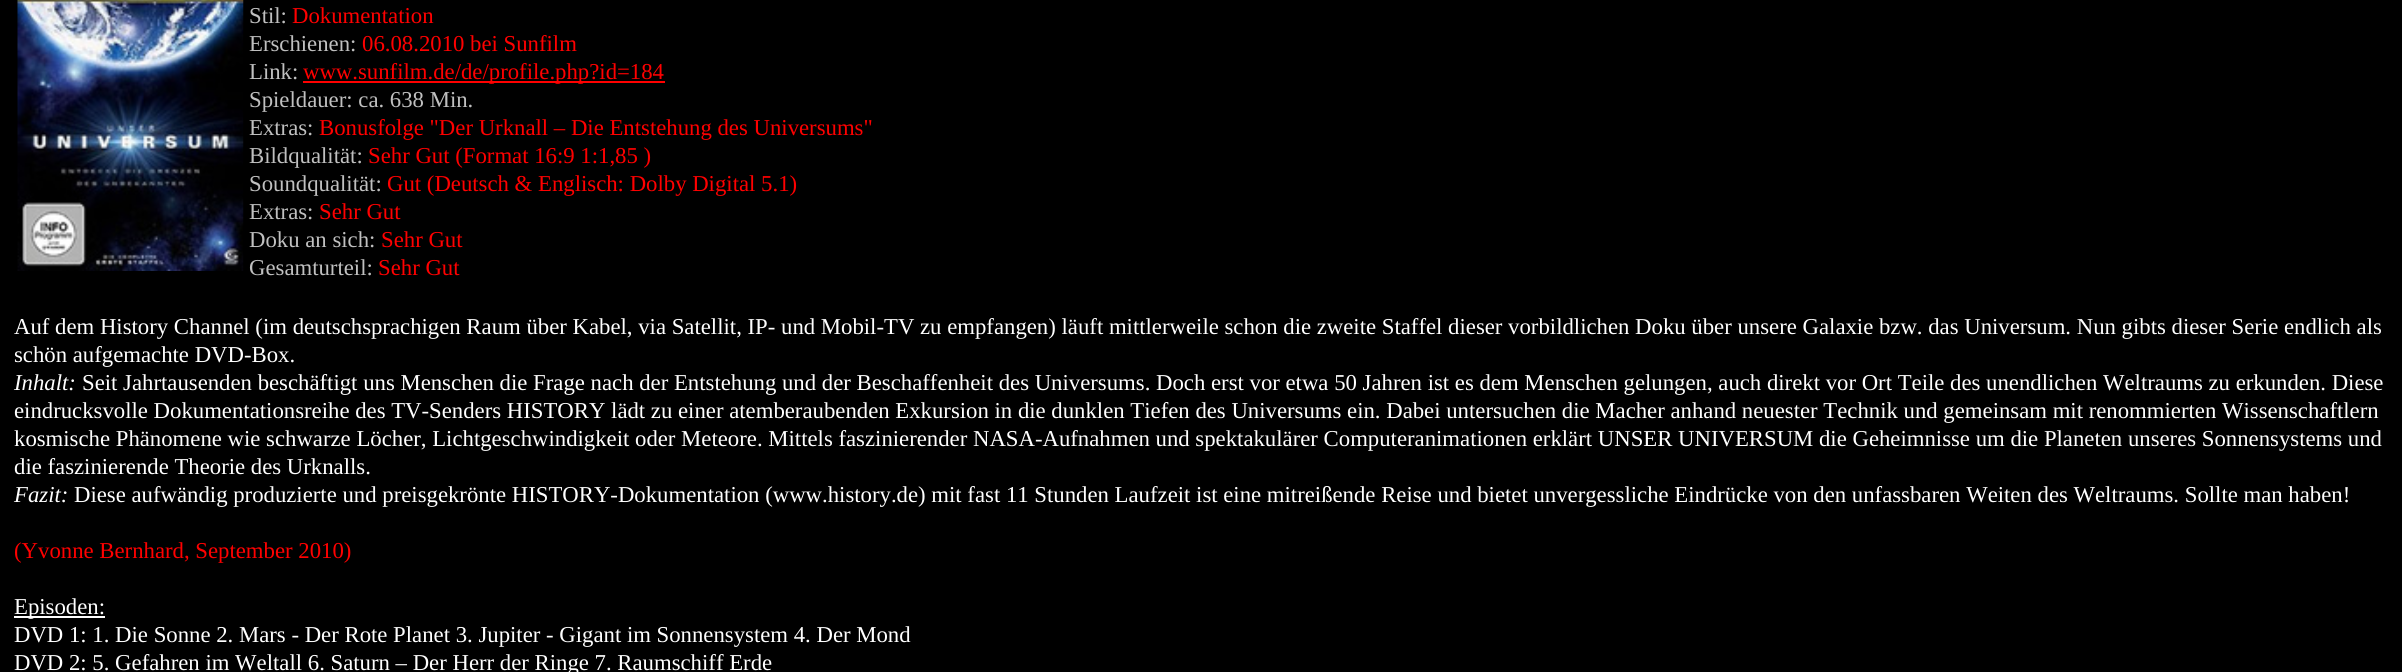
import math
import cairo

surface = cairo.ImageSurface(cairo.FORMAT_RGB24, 2402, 672)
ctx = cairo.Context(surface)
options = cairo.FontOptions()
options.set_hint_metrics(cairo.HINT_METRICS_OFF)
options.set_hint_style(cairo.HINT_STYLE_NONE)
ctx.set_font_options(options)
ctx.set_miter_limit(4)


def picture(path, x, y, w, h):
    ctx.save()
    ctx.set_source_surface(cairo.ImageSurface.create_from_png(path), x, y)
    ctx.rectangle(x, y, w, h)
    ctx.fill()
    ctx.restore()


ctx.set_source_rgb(0, 0, 0)
ctx.paint()
picture("img1.png", 17, 0, 227, 271)
ctx.select_font_face("Liberation Serif")
ctx.set_font_size(22.75)
ctx.set_source_rgb(0.753, 0.753, 0.753)
ctx.move_to(249, 23)
ctx.show_text("Stil:")
ctx.set_source_rgb(1, 0, 0)
ctx.move_to(292, 23)
ctx.show_text("Dokumentation")
ctx.set_source_rgb(0.753, 0.753, 0.753)
ctx.move_to(249, 51)
ctx.show_text("Erschienen:")
ctx.set_source_rgb(1, 0, 0)
ctx.move_to(362, 51)
ctx.show_text("06.08.2010 bei Sunfilm")
ctx.set_source_rgb(0.753, 0.753, 0.753)
ctx.move_to(249, 79)
ctx.show_text("Link:")
ctx.set_source_rgb(1, 0, 0)
ctx.rectangle(303, 81, 362, 2)
ctx.fill()
ctx.move_to(303, 79)
ctx.show_text("www.sunfilm.de/de/profile.php?id=184")
ctx.set_source_rgb(0.753, 0.753, 0.753)
ctx.move_to(249, 107)
ctx.show_text("Spieldauer: ca. 638 Min.")
ctx.move_to(249, 135)
ctx.show_text("Extras:")
ctx.set_source_rgb(1, 0, 0)
ctx.move_to(319, 135)
ctx.show_text("Bonusfolge \"Der Urknall – Die Entstehung des Universums\"")
ctx.set_source_rgb(0.753, 0.753, 0.753)
ctx.move_to(249, 163)
ctx.show_text("Bildqualität:")
ctx.set_source_rgb(1, 0, 0)
ctx.move_to(368, 163)
ctx.show_text("Sehr Gut (Format 16:9 1:1,85 )")
ctx.set_source_rgb(0.753, 0.753, 0.753)
ctx.move_to(249, 191)
ctx.show_text("Soundqualität:")
ctx.set_source_rgb(1, 0, 0)
ctx.move_to(387, 191)
ctx.show_text("Gut (Deutsch & Englisch: Dolby Digital 5.1)")
ctx.set_source_rgb(0.753, 0.753, 0.753)
ctx.move_to(249, 219)
ctx.show_text("Extras:")
ctx.set_source_rgb(1, 0, 0)
ctx.move_to(319, 219)
ctx.show_text("Sehr Gut")
ctx.set_source_rgb(0.753, 0.753, 0.753)
ctx.move_to(249, 247)
ctx.show_text("Doku an sich:")
ctx.set_source_rgb(1, 0, 0)
ctx.move_to(381, 247)
ctx.show_text("Sehr Gut")
ctx.set_source_rgb(0.753, 0.753, 0.753)
ctx.move_to(249, 275)
ctx.show_text("Gesamturteil:")
ctx.set_source_rgb(1, 0, 0)
ctx.move_to(378, 275)
ctx.show_text("Sehr Gut")
ctx.set_source_rgb(1, 1, 1)
ctx.move_to(14, 334)
ctx.show_text("Auf dem History Channel (im deutschsprachigen Raum über Kabel, via Satellit, IP- und Mobil-TV zu empfangen) läuft mittlerweile schon die zweite Staffel dieser vorbildlichen Doku über unsere Galaxie bzw. das Universum. Nun gibts dieser Serie endlich als")
ctx.move_to(14, 362)
ctx.show_text("schön aufgemachte DVD-Box.")
ctx.select_font_face("Liberation Serif", cairo.FONT_SLANT_ITALIC)
ctx.move_to(14, 390)
ctx.show_text("Inhalt:")
ctx.select_font_face("Liberation Serif")
ctx.move_to(82, 390)
ctx.show_text("Seit Jahrtausenden beschäftigt uns Menschen die Frage nach der Entstehung und der Beschaffenheit des Universums. Doch erst vor etwa 50 Jahren ist es dem Menschen gelungen, auch direkt vor Ort Teile des unendlichen Weltraums zu erkunden. Diese")
ctx.move_to(14, 418)
ctx.show_text("eindrucksvolle Dokumentationsreihe des TV-Senders HISTORY lädt zu einer atemberaubenden Exkursion in die dunklen Tiefen des Universums ein. Dabei untersuchen die Macher anhand neuester Technik und gemeinsam mit renommierten Wissenschaftlern")
ctx.move_to(14, 446)
ctx.show_text("kosmische Phänomene wie schwarze Löcher, Lichtgeschwindigkeit oder Meteore. Mittels faszinierender NASA-Aufnahmen und spektakulärer Computeranimationen erklärt UNSER UNIVERSUM die Geheimnisse um die Planeten unseres Sonnensystems und")
ctx.move_to(14, 474)
ctx.show_text("die faszinierende Theorie des Urknalls.")
ctx.select_font_face("Liberation Serif", cairo.FONT_SLANT_ITALIC)
ctx.move_to(14, 502)
ctx.show_text("Fazit:")
ctx.select_font_face("Liberation Serif")
ctx.move_to(74, 502)
ctx.show_text("Diese aufwändig produzierte und preisgekrönte HISTORY-Dokumentation (www.history.de) mit fast 11 Stunden Laufzeit ist eine mitreißende Reise und bietet unvergessliche Eindrücke von den unfassbaren Weiten des Weltraums. Sollte man haben!")
ctx.set_source_rgb(1, 0, 0)
ctx.move_to(14, 558)
ctx.show_text("(Yvonne Bernhard, September 2010)")
ctx.set_source_rgb(1, 1, 1)
ctx.rectangle(14, 616, 91, 2)
ctx.fill()
ctx.move_to(14, 614)
ctx.show_text("Episoden:")
ctx.move_to(14, 642)
ctx.show_text("DVD 1: 1. Die Sonne 2. Mars - Der Rote Planet 3. Jupiter - Gigant im Sonnensystem 4. Der Mond")
ctx.move_to(14, 670)
ctx.show_text("DVD 2: 5. Gefahren im Weltall 6. Saturn – Der Herr der Ringe 7. Raumschiff Erde")
surface.write_to_png("page.png")
